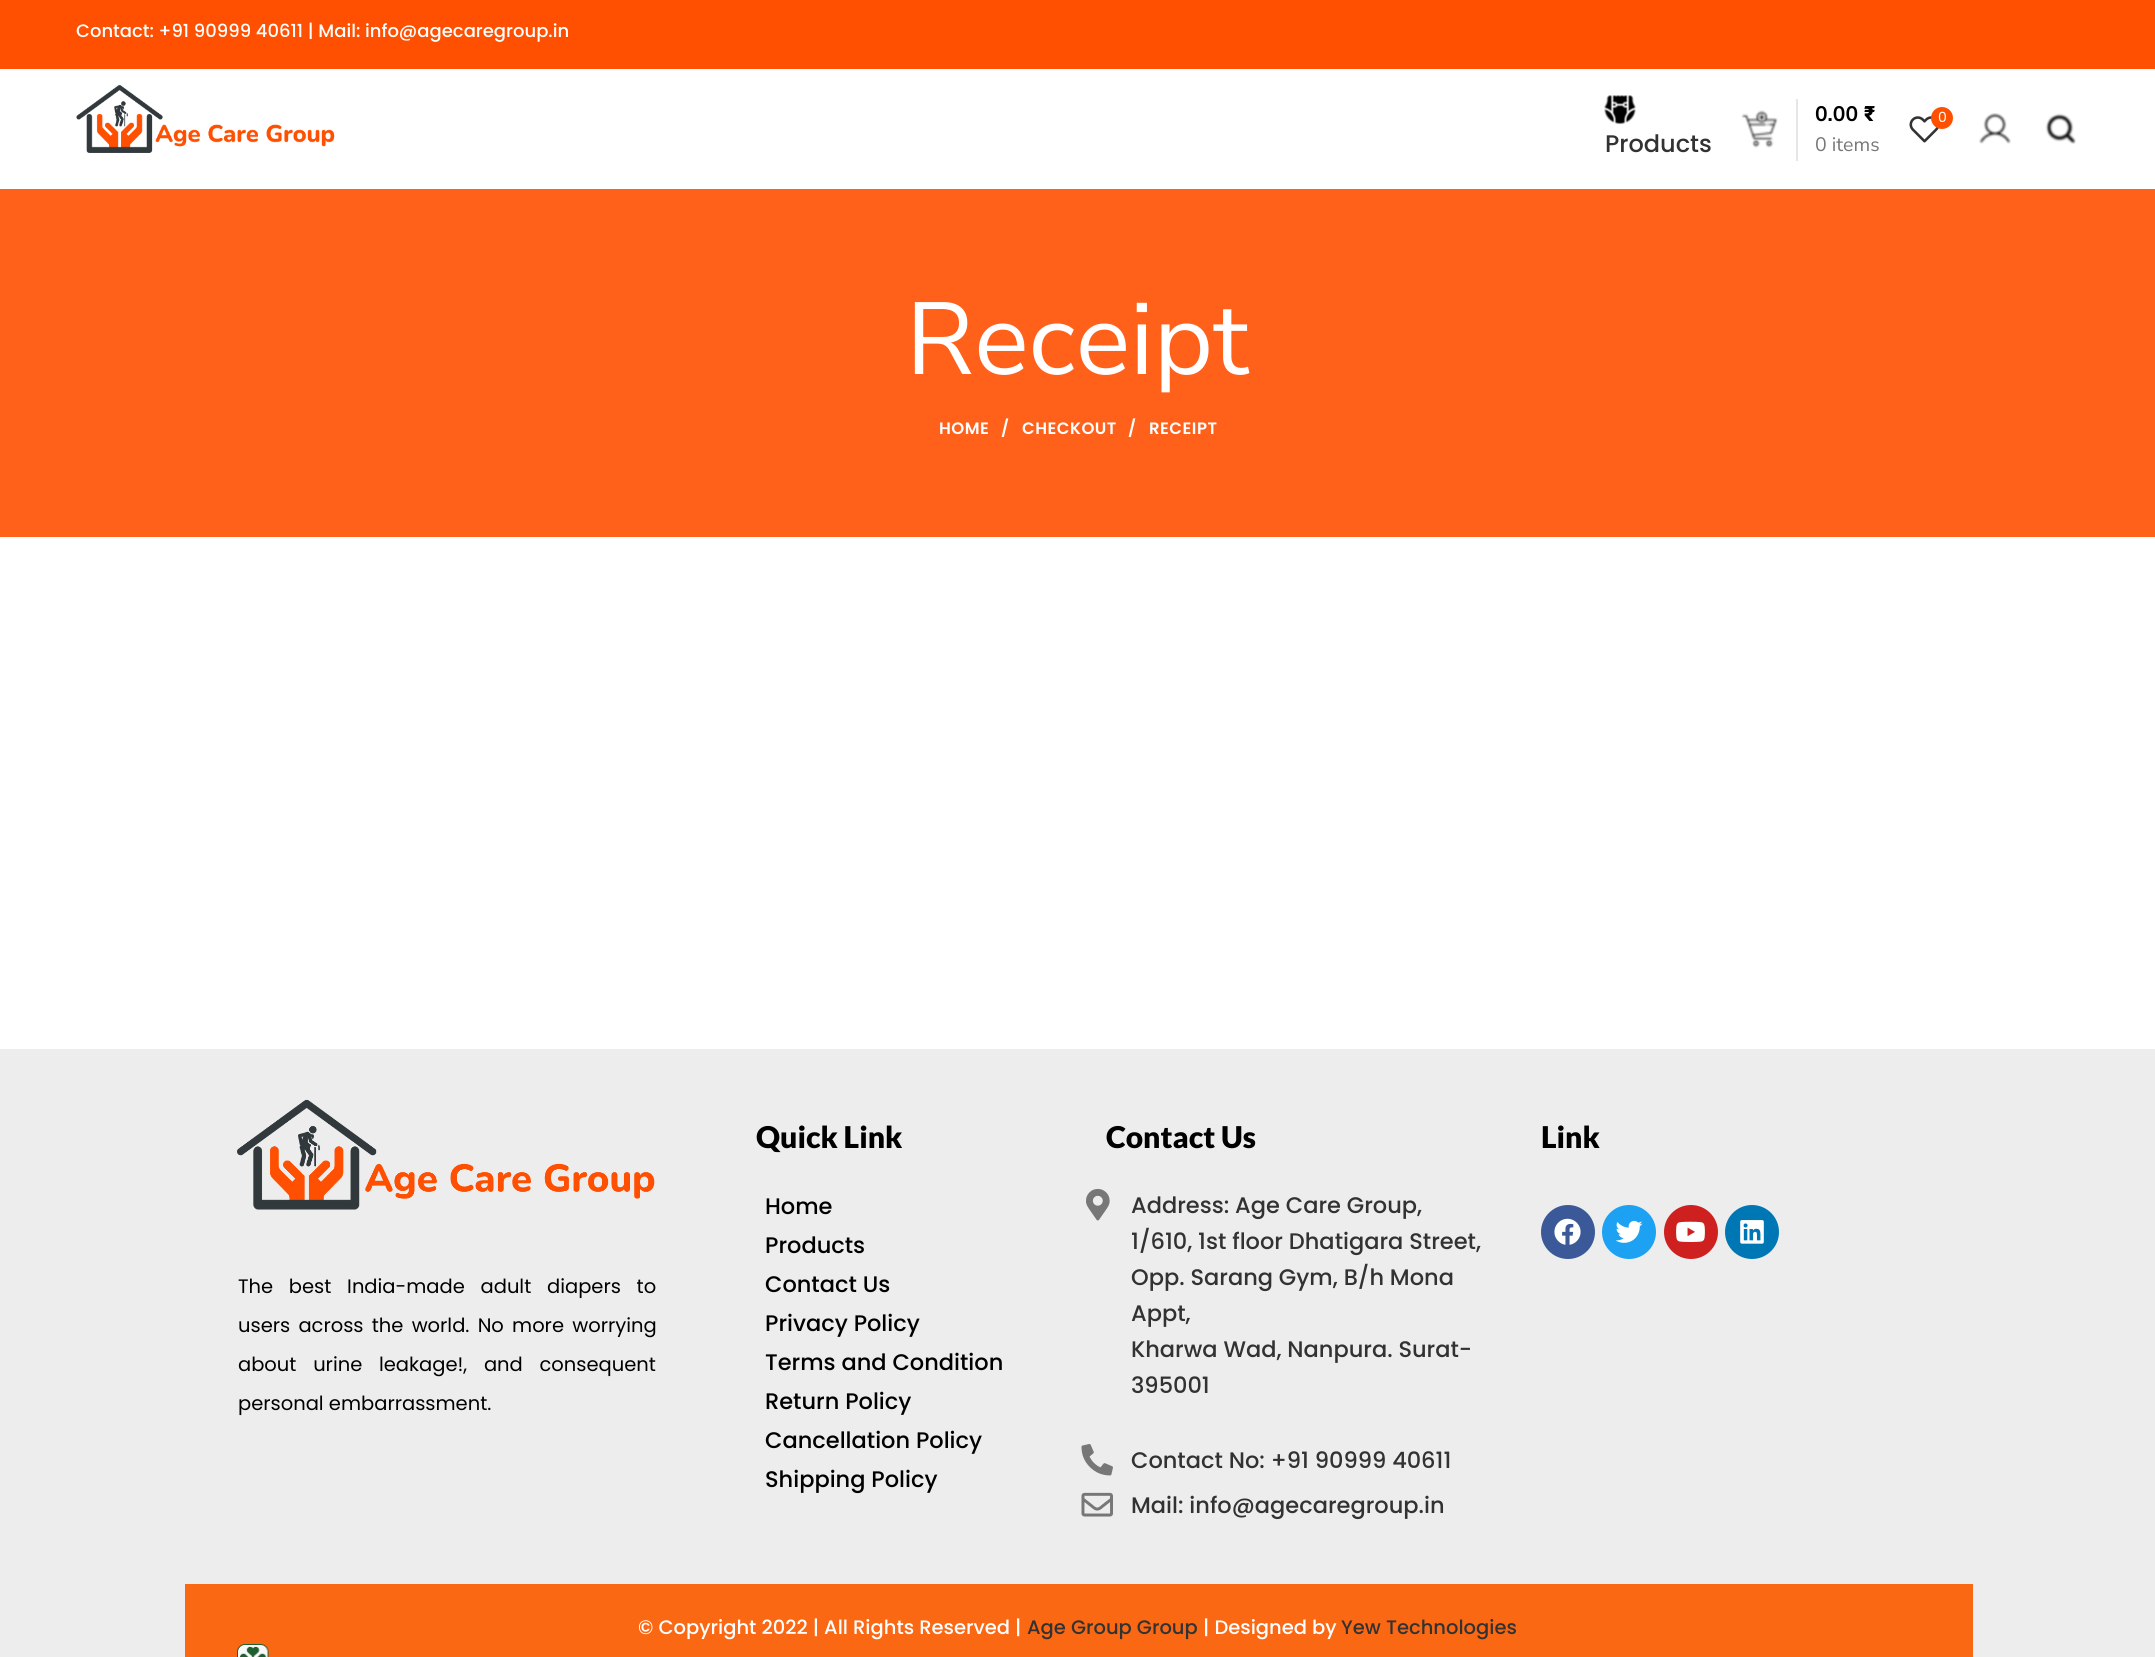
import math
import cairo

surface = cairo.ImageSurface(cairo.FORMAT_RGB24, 2155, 1657)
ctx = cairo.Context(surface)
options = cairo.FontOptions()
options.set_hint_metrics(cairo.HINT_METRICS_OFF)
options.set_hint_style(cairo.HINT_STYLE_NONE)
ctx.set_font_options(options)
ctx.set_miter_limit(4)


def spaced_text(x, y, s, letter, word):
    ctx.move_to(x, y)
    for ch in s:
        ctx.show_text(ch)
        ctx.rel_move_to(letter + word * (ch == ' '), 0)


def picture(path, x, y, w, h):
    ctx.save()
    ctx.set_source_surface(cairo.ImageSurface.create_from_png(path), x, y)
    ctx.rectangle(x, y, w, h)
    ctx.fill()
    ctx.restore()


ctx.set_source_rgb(1, 1, 1)
ctx.paint()
ctx.set_source_rgb(1, 0.31, 0)
ctx.rectangle(0, 0, 2155, 69)
ctx.fill()
ctx.select_font_face("Poppins Medium")
ctx.set_font_size(18)
ctx.set_source_rgb(1, 1, 1)
ctx.move_to(76, 37)
ctx.show_text("Contact: +91 90999 40611 | Mail: info@agecaregroup.in")
picture("img1.png", 76, 84, 259, 69)
picture("img2.png", 1604, 95, 32, 30)
ctx.set_font_size(24)
ctx.set_source_rgb(0.196, 0.196, 0.196)
ctx.move_to(1605, 152)
ctx.show_text("Products")
picture("img3.png", 1741, 110, 37, 38)
ctx.set_source_rgb(0.902, 0.902, 0.902)
ctx.rectangle(1796, 99, 2, 62)
ctx.fill()
ctx.select_font_face("Nunito Sans", cairo.FONT_SLANT_NORMAL, cairo.FONT_WEIGHT_BOLD)
ctx.set_font_size(21)
ctx.set_source_rgb(0, 0, 0)
ctx.move_to(1815, 121)
ctx.show_text("0.00")
ctx.select_font_face("Roboto Black")
ctx.move_to(1864, 121)
ctx.show_text("₹")
ctx.select_font_face("Nunito Sans")
ctx.set_font_size(19.5)
ctx.set_source_rgb(0.467, 0.467, 0.467)
ctx.move_to(1815, 151)
ctx.show_text("0 items")
picture("img4.png", 1909, 116, 30, 27)
ctx.set_source_rgb(1, 0.31, 0)
ctx.arc(1942, 118, 11, 0, 2 * math.pi)
ctx.fill()
ctx.select_font_face("Poppins")
ctx.set_font_size(14)
ctx.set_source_rgb(1, 1, 1)
ctx.move_to(1938, 122)
ctx.show_text("0")
picture("img5.png", 1979, 113, 32, 31)
picture("img6.png", 2045, 113, 31, 31)
ctx.set_source_rgb(1, 0.38, 0.102)
ctx.rectangle(0, 189, 2155, 348)
ctx.fill()
ctx.select_font_face("Nunito Sans")
ctx.set_font_size(102)
ctx.set_source_rgb(1, 1, 1)
ctx.move_to(906, 374)
ctx.show_text("Receipt")
ctx.select_font_face("Poppins SemiBold")
ctx.set_font_size(16.5)
spaced_text(939, 434, "HOME", 0.5, 0)
spaced_text(1001, 434, "/", 0.5, 0)
spaced_text(1022, 434, "CHECKOUT", 0.5, 0)
spaced_text(1128, 434, "/", 0.5, 0)
spaced_text(1149, 434, "RECEIPT", 0.5, 0)
ctx.set_source_rgb(0.929, 0.929, 0.929)
ctx.rectangle(0, 1049, 2155, 608)
ctx.fill()
ctx.select_font_face("Lato Black")
ctx.set_font_size(30)
ctx.set_source_rgb(0, 0, 0)
ctx.move_to(756, 1148)
ctx.show_text("Quick Link")
ctx.select_font_face("Poppins Medium")
ctx.set_font_size(22.5)
ctx.move_to(765, 1214)
ctx.show_text("Home")
ctx.move_to(765, 1253)
ctx.show_text("Products")
ctx.move_to(765, 1292)
ctx.show_text("Contact Us")
ctx.move_to(765, 1331)
ctx.show_text("Privacy Policy")
ctx.move_to(765, 1370)
ctx.show_text("Terms and Condition")
ctx.move_to(765, 1409)
ctx.show_text("Return Policy")
ctx.move_to(765, 1448)
ctx.show_text("Cancellation Policy")
ctx.move_to(765, 1487)
ctx.show_text("Shipping Policy")
ctx.select_font_face("Lato Black")
ctx.set_font_size(30)
ctx.move_to(1106, 1148)
ctx.show_text("Contact Us")
picture("img7.png", 1086, 1188, 24, 33)
ctx.select_font_face("Poppins Medium")
ctx.set_font_size(22.5)
ctx.set_source_rgb(0.196, 0.196, 0.196)
ctx.move_to(1131, 1213)
ctx.show_text("Address: Age Care Group,")
ctx.move_to(1131, 1249)
ctx.show_text("1/610, 1st floor Dhatigara Street,")
ctx.move_to(1131, 1285)
ctx.show_text("Opp. Sarang Gym, B/h Mona")
ctx.move_to(1131, 1321)
ctx.show_text("Appt,")
ctx.move_to(1131, 1357)
ctx.show_text("Kharwa Wad, Nanpura. Surat-")
ctx.move_to(1131, 1393)
ctx.show_text("395001")
picture("img8.png", 1081, 1444, 32, 32)
ctx.move_to(1131, 1468)
ctx.show_text("Contact No: +91 90999 40611")
picture("img9.png", 1081, 1492, 32, 25)
ctx.move_to(1131, 1513)
ctx.show_text("Mail: info@agecaregroup.in")
ctx.select_font_face("Lato Black")
ctx.set_font_size(30)
ctx.set_source_rgb(0, 0, 0)
ctx.move_to(1541, 1148)
ctx.show_text("Link")
ctx.set_source_rgb(0.231, 0.349, 0.596)
ctx.new_path()
ctx.arc(1568, 1232, 27, 0, 2 * math.pi)
ctx.fill()
picture("img10.png", 1554, 1218, 27, 27)
ctx.set_source_rgb(0.114, 0.631, 0.949)
ctx.arc(1629, 1232, 27, 0, 2 * math.pi)
ctx.fill()
picture("img11.png", 1615, 1220, 28, 23)
ctx.set_source_rgb(0.804, 0.125, 0.122)
ctx.arc(1691, 1232, 27, 0, 2 * math.pi)
ctx.fill()
picture("img12.png", 1676, 1221, 29, 21)
ctx.set_source_rgb(0, 0.467, 0.71)
ctx.arc(1752, 1232, 27, 0, 2 * math.pi)
ctx.fill()
picture("img13.png", 1740, 1220, 24, 24)
picture("img14.png", 237, 1099, 418, 111)
ctx.select_font_face("Poppins")
ctx.set_font_size(19.5)
ctx.set_source_rgb(0, 0, 0)
spaced_text(238, 1293, "The best India-made adult diapers to", 0, 10.5)
spaced_text(238, 1332, "users across the world. No more worrying", 0, 3)
spaced_text(238, 1371, "about urine leakage!, and consequent", 0, 11.5)
ctx.move_to(238, 1410)
ctx.show_text("personal embarrassment.")
ctx.set_source_rgb(0.984, 0.408, 0.075)
ctx.rectangle(185, 1584, 1788, 73)
ctx.fill()
ctx.select_font_face("Poppins Medium")
ctx.set_source_rgb(1, 1, 1)
ctx.move_to(638, 1634)
ctx.show_text("© Copyright 2022 | All Rights Reserved |")
ctx.set_source_rgb(0.196, 0.196, 0.196)
ctx.move_to(1027, 1634)
ctx.show_text("Age Group Group")
ctx.set_source_rgb(1, 1, 1)
ctx.move_to(1203, 1634)
ctx.show_text("| Designed by")
ctx.set_source_rgb(0.196, 0.196, 0.196)
ctx.move_to(1341, 1634)
ctx.show_text("Yew Technologies")
picture("img15.png", 237, 1644, 32, 13)
surface.write_to_png("page.png")
